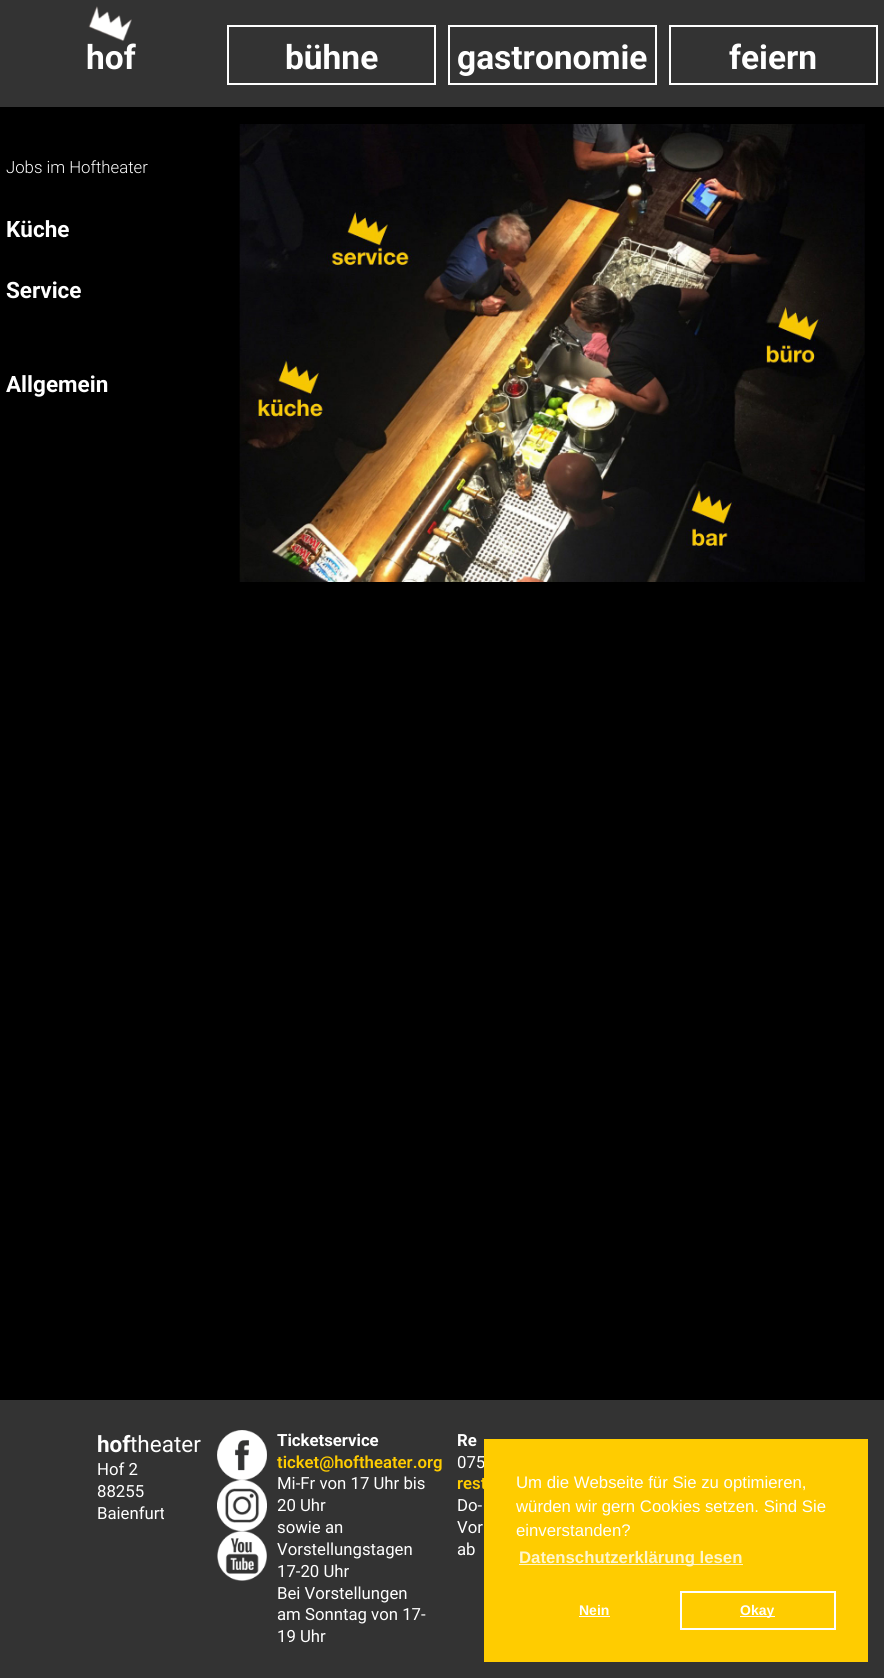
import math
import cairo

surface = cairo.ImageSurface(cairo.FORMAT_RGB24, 884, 1678)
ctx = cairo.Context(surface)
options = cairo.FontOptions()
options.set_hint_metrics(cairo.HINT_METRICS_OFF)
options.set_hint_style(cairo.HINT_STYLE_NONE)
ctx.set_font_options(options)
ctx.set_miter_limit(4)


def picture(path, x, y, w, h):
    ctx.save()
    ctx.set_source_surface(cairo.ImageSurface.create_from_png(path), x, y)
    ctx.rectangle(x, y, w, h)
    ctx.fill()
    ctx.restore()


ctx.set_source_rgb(0, 0, 0)
ctx.paint()
ctx.set_source_rgb(0.2, 0.2, 0.2)
ctx.rectangle(0, 0, 884, 107)
ctx.fill()
picture("img1.png", 88, 6, 44, 36)
ctx.select_font_face("Roboto", cairo.FONT_SLANT_NORMAL, cairo.FONT_WEIGHT_BOLD)
ctx.set_font_size(33.5)
ctx.set_source_rgb(1, 1, 1)
ctx.move_to(86, 69)
ctx.show_text("hof")
ctx.rectangle(228, 26, 207, 58)
ctx.stroke()
ctx.move_to(285, 69)
ctx.show_text("bühne")
ctx.rectangle(449, 26, 207, 58)
ctx.stroke()
ctx.move_to(457, 69)
ctx.show_text("gastronomie")
ctx.rectangle(670, 26, 207, 58)
ctx.stroke()
ctx.move_to(729, 69)
ctx.show_text("feiern")
ctx.select_font_face("Roboto Light")
ctx.set_font_size(16.75)
ctx.move_to(6, 173)
ctx.show_text("Jobs im Hoftheater")
ctx.select_font_face("Roboto", cairo.FONT_SLANT_NORMAL, cairo.FONT_WEIGHT_BOLD)
ctx.set_font_size(22.5)
ctx.move_to(6, 237)
ctx.show_text("Küche")
ctx.move_to(6, 298)
ctx.show_text("Service")
ctx.move_to(6, 392)
ctx.show_text("Allgemein")
picture("img2.png", 239, 124, 626, 458)
ctx.set_source_rgb(0.2, 0.2, 0.2)
ctx.rectangle(0, 1400, 884, 278)
ctx.fill()
ctx.set_source_rgb(1, 1, 1)
ctx.move_to(97, 1452)
ctx.show_text("hof")
ctx.select_font_face("Roboto")
ctx.move_to(130, 1452)
ctx.show_text("theater")
ctx.set_font_size(16.75)
ctx.move_to(97, 1475)
ctx.show_text("Hof 2")
ctx.move_to(97, 1497)
ctx.show_text("88255")
ctx.move_to(97, 1519)
ctx.show_text("Baienfurt")
picture("img3.png", 217, 1430, 50, 50)
picture("img4.png", 217, 1480, 50, 51)
picture("img5.png", 217, 1531, 50, 50)
ctx.select_font_face("Roboto", cairo.FONT_SLANT_NORMAL, cairo.FONT_WEIGHT_BOLD)
ctx.move_to(277, 1446)
ctx.show_text("Ticketservice")
ctx.select_font_face("Roboto SemiBold")
ctx.set_source_rgb(1, 0.8, 0)
ctx.move_to(277, 1468)
ctx.show_text("ticket@hoftheater.org")
ctx.select_font_face("Roboto")
ctx.set_source_rgb(1, 1, 1)
ctx.move_to(277, 1489)
ctx.show_text("Mi-Fr von 17 Uhr bis")
ctx.move_to(277, 1511)
ctx.show_text("20 Uhr")
ctx.move_to(277, 1533)
ctx.show_text("sowie an")
ctx.move_to(277, 1555)
ctx.show_text("Vorstellungstagen")
ctx.move_to(277, 1577)
ctx.show_text("17-20 Uhr")
ctx.move_to(277, 1599)
ctx.show_text("Bei Vorstellungen")
ctx.move_to(277, 1620)
ctx.show_text("am Sonntag von 17-")
ctx.move_to(277, 1642)
ctx.show_text("19 Uhr")
ctx.select_font_face("Roboto", cairo.FONT_SLANT_NORMAL, cairo.FONT_WEIGHT_BOLD)
ctx.move_to(457, 1446)
ctx.show_text("Re")
ctx.select_font_face("Roboto")
ctx.move_to(457, 1468)
ctx.show_text("075")
ctx.select_font_face("Roboto SemiBold")
ctx.set_source_rgb(1, 0.8, 0)
ctx.move_to(457, 1489)
ctx.show_text("rest")
ctx.select_font_face("Roboto")
ctx.set_source_rgb(1, 1, 1)
ctx.move_to(457, 1511)
ctx.show_text("Do-")
ctx.move_to(457, 1533)
ctx.show_text("Vor")
ctx.move_to(457, 1555)
ctx.show_text("ab")
ctx.set_source_rgb(1, 0.8, 0)
ctx.rectangle(484, 1439, 384, 223)
ctx.fill()
ctx.select_font_face("Liberation Sans")
ctx.set_source_rgb(1, 1, 1)
ctx.move_to(516, 1488)
ctx.show_text("Um die Webseite für Sie zu optimieren,")
ctx.move_to(516, 1512)
ctx.show_text("würden wir gern Cookies setzen. Sind Sie")
ctx.move_to(516, 1536)
ctx.show_text("einverstanden?")
ctx.set_source_rgb(1, 0.961, 0.8)
ctx.rectangle(519, 1564, 224, 1)
ctx.fill()
ctx.select_font_face("Liberation Sans", cairo.FONT_SLANT_NORMAL, cairo.FONT_WEIGHT_BOLD)
ctx.move_to(519, 1563)
ctx.show_text("Datenschutzerklärung lesen")
ctx.set_font_size(14)
ctx.set_source_rgb(1, 1, 1)
ctx.move_to(579, 1615)
ctx.show_text("Nein")
ctx.rectangle(579, 1616, 31, 1)
ctx.fill()
ctx.rectangle(681, 1592, 154, 37)
ctx.stroke()
ctx.rectangle(740, 1616, 35, 1)
ctx.fill()
ctx.move_to(740, 1615)
ctx.show_text("Okay")
surface.write_to_png("page.png")
